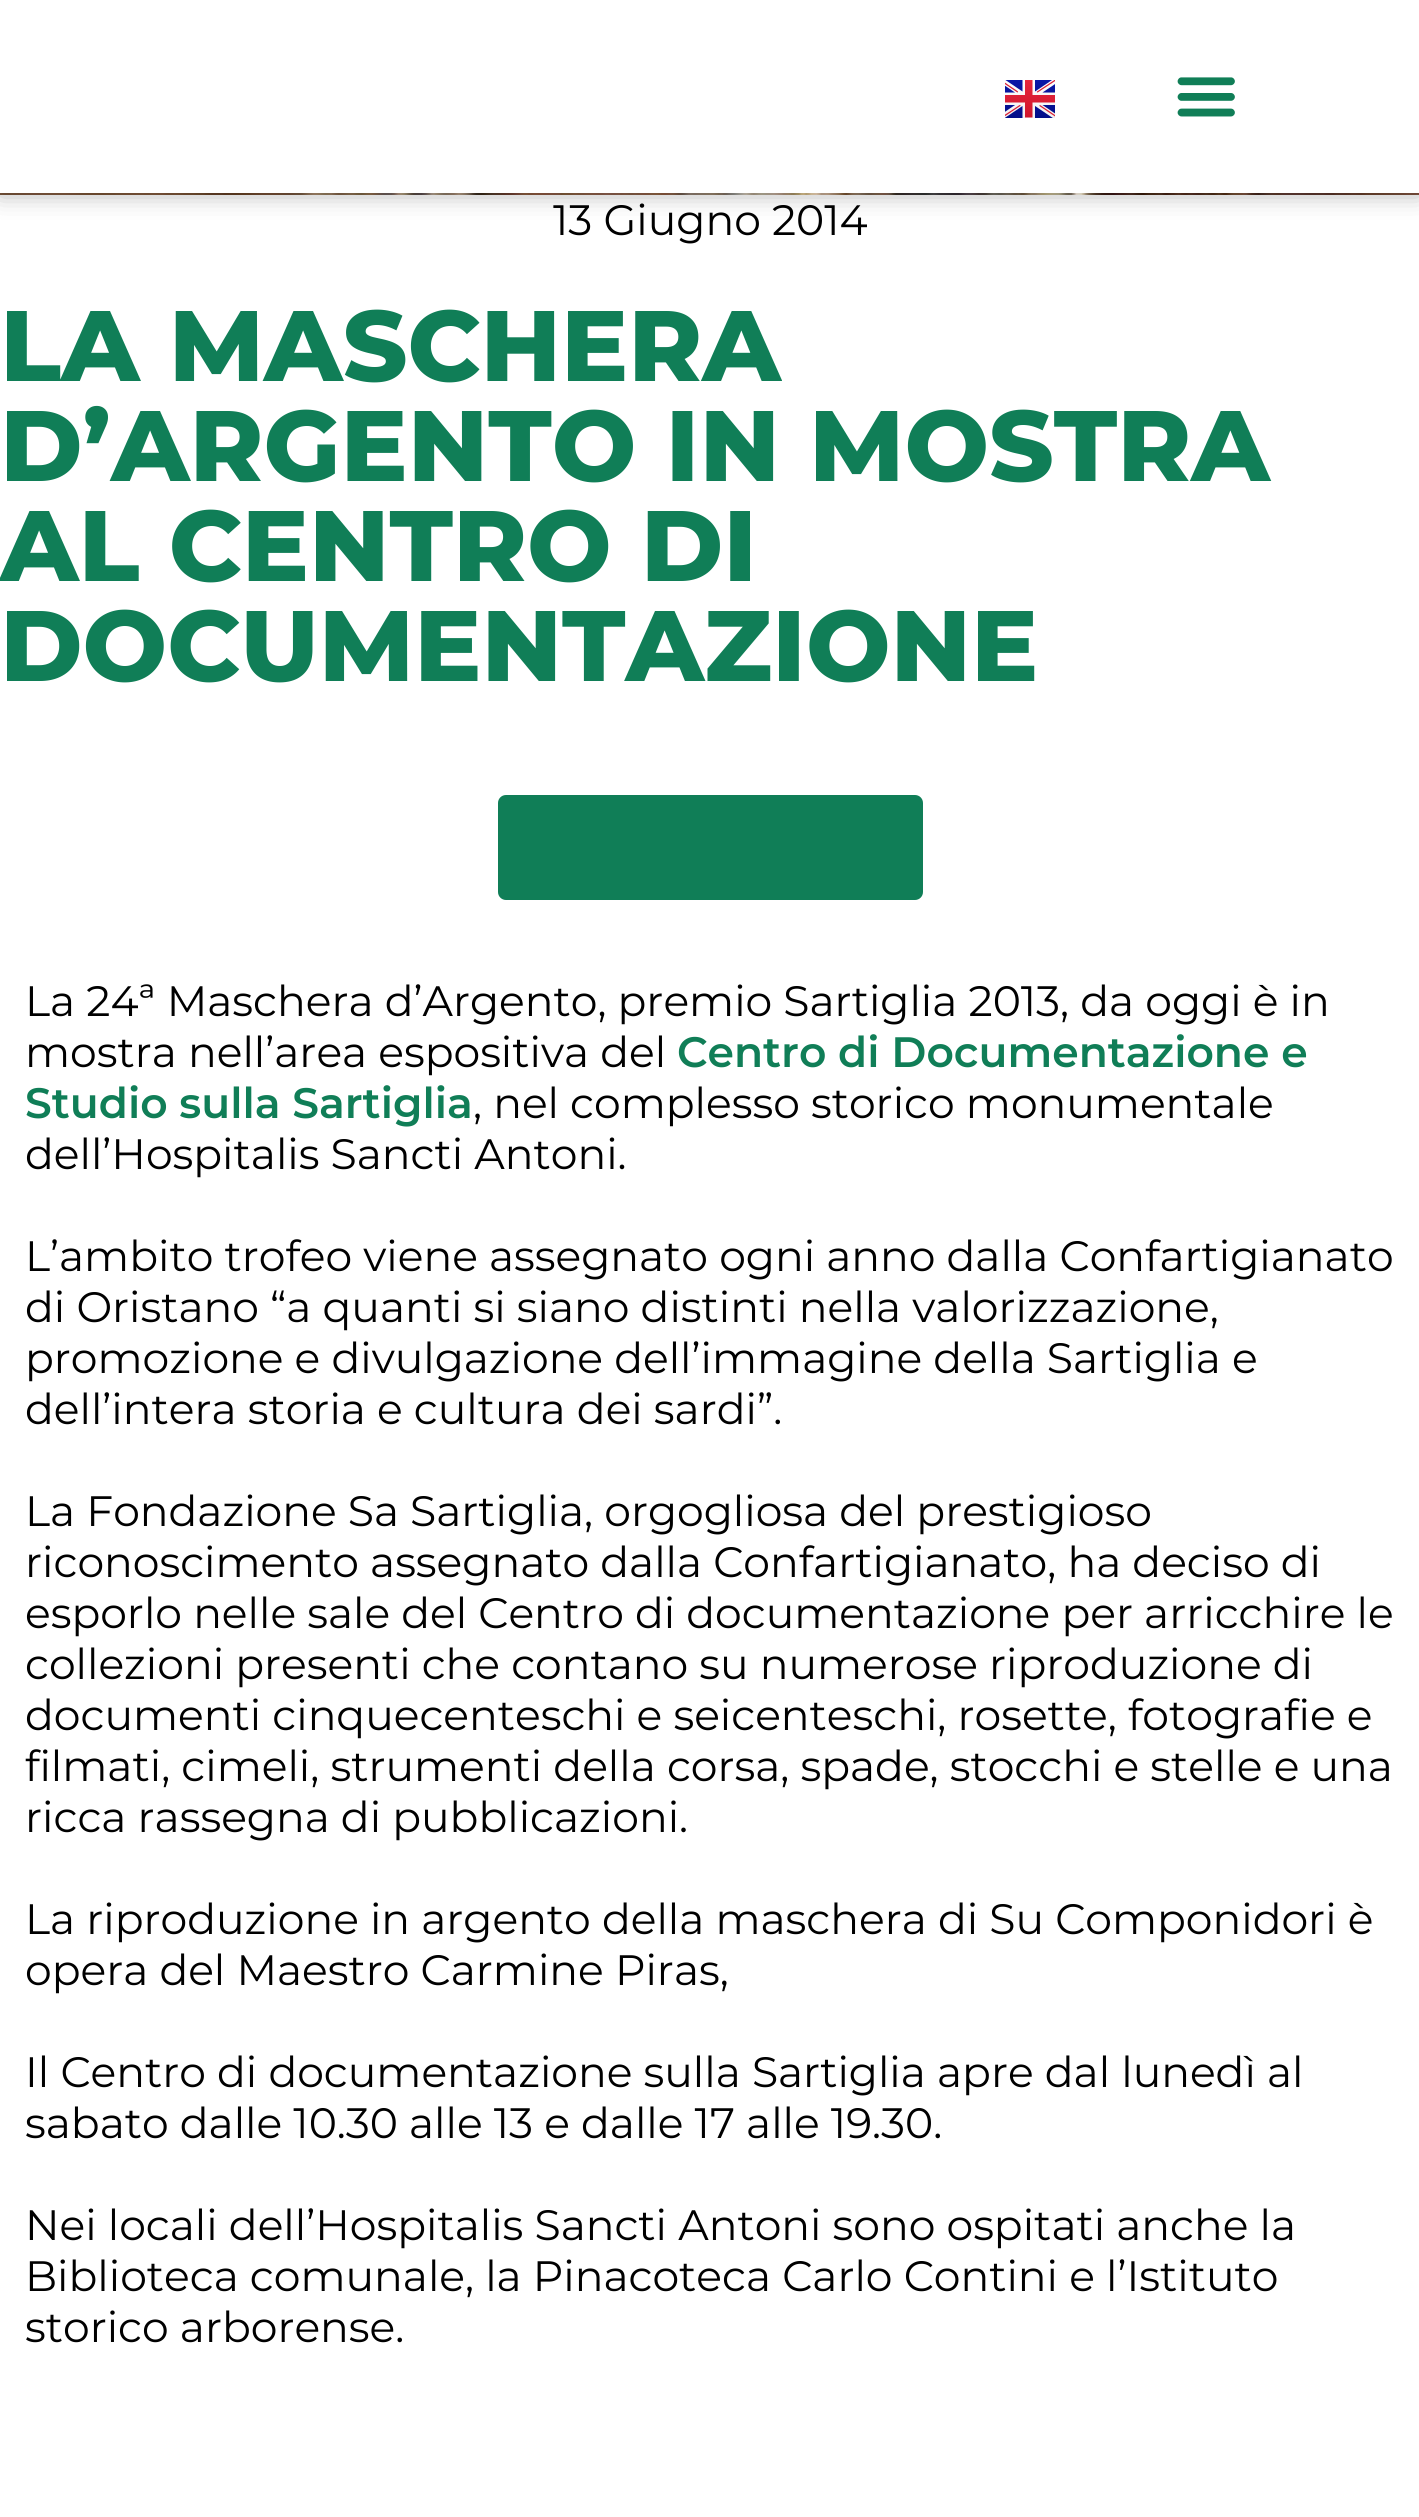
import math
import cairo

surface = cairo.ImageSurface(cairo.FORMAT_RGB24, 1419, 2517)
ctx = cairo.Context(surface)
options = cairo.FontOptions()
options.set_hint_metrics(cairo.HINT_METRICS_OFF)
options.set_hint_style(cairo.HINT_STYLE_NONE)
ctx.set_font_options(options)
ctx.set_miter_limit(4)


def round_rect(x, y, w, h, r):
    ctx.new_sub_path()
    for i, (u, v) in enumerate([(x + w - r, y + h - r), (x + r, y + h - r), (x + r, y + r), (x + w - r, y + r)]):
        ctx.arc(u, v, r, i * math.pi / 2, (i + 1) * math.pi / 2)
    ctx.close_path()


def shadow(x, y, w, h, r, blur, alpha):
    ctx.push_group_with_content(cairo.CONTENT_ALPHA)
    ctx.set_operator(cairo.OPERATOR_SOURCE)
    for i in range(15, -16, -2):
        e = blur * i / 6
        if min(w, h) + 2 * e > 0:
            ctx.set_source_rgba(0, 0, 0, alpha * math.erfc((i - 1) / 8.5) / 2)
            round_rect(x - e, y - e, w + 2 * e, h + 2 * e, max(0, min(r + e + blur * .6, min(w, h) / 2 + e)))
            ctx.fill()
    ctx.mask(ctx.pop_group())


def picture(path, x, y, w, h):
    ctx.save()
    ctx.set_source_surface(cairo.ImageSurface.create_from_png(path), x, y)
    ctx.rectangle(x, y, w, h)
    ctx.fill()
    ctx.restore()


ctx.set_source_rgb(1, 1, 1)
ctx.paint()
picture("img3.png", 0, 193, 1419, 2)
ctx.set_source_rgb(0, 0, 0)
shadow(0, 0, 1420, 193, 0, 12.5, 0.33)
ctx.set_source_rgb(1, 1, 1)
ctx.rectangle(0, 0, 1419, 193)
ctx.fill()
picture("img1.png", 1005, 80, 50, 38)
picture("img2.png", 1177, 77, 58, 40)
ctx.select_font_face("Montserrat")
ctx.set_font_size(42.5)
ctx.set_source_rgb(0, 0, 0)
ctx.move_to(553, 235)
ctx.show_text("13 Giugno 2014")
ctx.select_font_face("Montserrat ExtraBold")
ctx.set_font_size(100)
ctx.set_source_rgb(0.063, 0.494, 0.341)
ctx.move_to(0, 381)
ctx.show_text("LA MASCHERA")
ctx.move_to(0, 481)
ctx.show_text("D’ARGENTO IN MOSTRA")
ctx.move_to(0, 581)
ctx.show_text("AL CENTRO DI")
ctx.move_to(0, 681)
ctx.show_text("DOCUMENTAZIONE")
round_rect(498, 795, 425, 105, 8)
ctx.fill()
ctx.select_font_face("Montserrat")
ctx.set_font_size(42.5)
ctx.set_source_rgb(0, 0, 0)
ctx.move_to(25, 1016)
ctx.show_text("La 24ª Maschera d’Argento, premio Sartiglia 2013, da oggi è in")
ctx.move_to(25, 1067)
ctx.show_text("mostra nell’area espositiva del")
ctx.select_font_face("Montserrat SemiBold")
ctx.set_source_rgb(0.063, 0.494, 0.341)
ctx.move_to(677, 1067)
ctx.show_text("Centro di Documentazione e")
ctx.move_to(25, 1118)
ctx.show_text("Studio sulla Sartiglia")
ctx.select_font_face("Montserrat")
ctx.set_source_rgb(0, 0, 0)
ctx.move_to(473, 1118)
ctx.show_text(", nel complesso storico monumentale")
ctx.move_to(25, 1169)
ctx.show_text("dell’Hospitalis Sancti Antoni.")
ctx.move_to(25, 1271)
ctx.show_text("L’ambito trofeo viene assegnato ogni anno dalla Confartigianato")
ctx.move_to(25, 1322)
ctx.show_text("di Oristano “a quanti si siano distinti nella valorizzazione,")
ctx.move_to(25, 1373)
ctx.show_text("promozione e divulgazione dell’immagine della Sartiglia e")
ctx.move_to(25, 1424)
ctx.show_text("dell’intera storia e cultura dei sardi”.")
ctx.move_to(25, 1526)
ctx.show_text("La Fondazione Sa Sartiglia, orgogliosa del prestigioso")
ctx.move_to(25, 1577)
ctx.show_text("riconoscimento assegnato dalla Confartigianato, ha deciso di")
ctx.move_to(25, 1628)
ctx.show_text("esporlo nelle sale del Centro di documentazione per arricchire le")
ctx.move_to(25, 1679)
ctx.show_text("collezioni presenti che contano su numerose riproduzione di")
ctx.move_to(25, 1730)
ctx.show_text("documenti cinquecenteschi e seicenteschi, rosette, fotografie e")
ctx.move_to(25, 1781)
ctx.show_text("filmati, cimeli, strumenti della corsa, spade, stocchi e stelle e una")
ctx.move_to(25, 1832)
ctx.show_text("ricca rassegna di pubblicazioni.")
ctx.move_to(25, 1934)
ctx.show_text("La riproduzione in argento della maschera di Su Componidori è")
ctx.move_to(25, 1985)
ctx.show_text("opera del Maestro Carmine Piras,")
ctx.move_to(25, 2087)
ctx.show_text("Il Centro di documentazione sulla Sartiglia apre dal lunedì al")
ctx.move_to(25, 2138)
ctx.show_text("sabato dalle 10.30 alle 13 e dalle 17 alle 19.30.")
ctx.move_to(25, 2240)
ctx.show_text("Nei locali dell’Hospitalis Sancti Antoni sono ospitati anche la")
ctx.move_to(25, 2291)
ctx.show_text("Biblioteca comunale, la Pinacoteca Carlo Contini e l’Istituto")
ctx.move_to(25, 2342)
ctx.show_text("storico arborense.")
surface.write_to_png("page.png")
